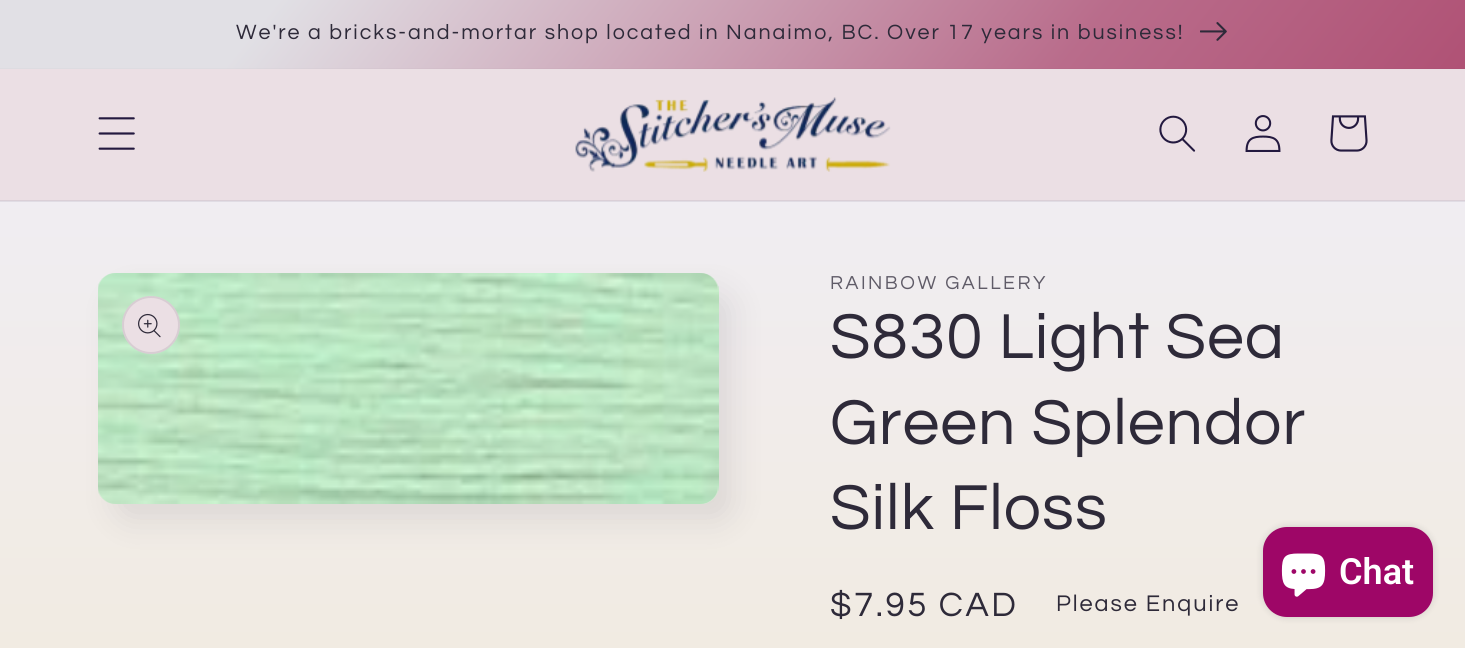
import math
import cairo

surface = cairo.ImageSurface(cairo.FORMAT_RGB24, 1465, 648)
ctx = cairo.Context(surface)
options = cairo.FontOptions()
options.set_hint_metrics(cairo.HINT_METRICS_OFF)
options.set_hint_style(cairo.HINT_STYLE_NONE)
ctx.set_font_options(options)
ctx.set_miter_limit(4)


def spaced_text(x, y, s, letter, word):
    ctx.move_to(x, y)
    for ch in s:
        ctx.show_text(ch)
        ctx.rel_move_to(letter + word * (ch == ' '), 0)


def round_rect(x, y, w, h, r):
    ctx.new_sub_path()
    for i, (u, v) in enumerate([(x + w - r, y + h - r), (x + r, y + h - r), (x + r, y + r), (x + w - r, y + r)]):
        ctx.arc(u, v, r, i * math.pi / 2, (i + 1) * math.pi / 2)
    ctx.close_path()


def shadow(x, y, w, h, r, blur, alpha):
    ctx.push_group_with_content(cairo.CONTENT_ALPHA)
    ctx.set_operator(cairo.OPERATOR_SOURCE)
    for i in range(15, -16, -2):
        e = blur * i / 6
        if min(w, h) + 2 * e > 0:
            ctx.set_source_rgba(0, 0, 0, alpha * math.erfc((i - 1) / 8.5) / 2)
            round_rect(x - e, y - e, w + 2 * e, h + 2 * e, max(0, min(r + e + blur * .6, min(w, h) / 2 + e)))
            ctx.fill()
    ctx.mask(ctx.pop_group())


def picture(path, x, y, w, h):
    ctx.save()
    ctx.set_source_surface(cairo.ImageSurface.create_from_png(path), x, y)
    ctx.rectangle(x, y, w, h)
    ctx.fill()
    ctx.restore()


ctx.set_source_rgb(1, 1, 1)
ctx.paint()
gradient = cairo.LinearGradient(733, 0, 733, 648)
gradient.add_color_stop_rgba(0, 0.941, 0.933, 0.976, 1)
gradient.add_color_stop_rgba(1, 0.945, 0.922, 0.886, 1)
ctx.set_source(gradient)
ctx.rectangle(0, 202, 1465, 446)
ctx.fill()
gradient = cairo.LinearGradient(733, 0, 733, 648)
gradient.add_color_stop_rgba(0, 0.878, 0.867, 0.918, 1)
gradient.add_color_stop_rgba(1, 0.882, 0.855, 0.835, 1)
ctx.set_source(gradient)
ctx.rectangle(0, 201, 1465, 1)
ctx.fill()
gradient = cairo.LinearGradient(132, -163, 1334, 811)
gradient.add_color_stop_rgba(0.14, 0.882, 0.878, 0.898, 1)
gradient.add_color_stop_rgba(0.56, 0.725, 0.424, 0.545, 1)
gradient.add_color_stop_rgba(0.84, 0.675, 0.282, 0.427, 1)
ctx.set_source(gradient)
ctx.rectangle(0, 0, 1465, 68)
ctx.fill()
gradient = cairo.LinearGradient(132, -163, 1334, 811)
gradient.add_color_stop_rgba(0.14, 0.867, 0.863, 0.882, 1)
gradient.add_color_stop_rgba(0.56, 0.714, 0.416, 0.537, 1)
gradient.add_color_stop_rgba(0.84, 0.663, 0.278, 0.424, 1)
ctx.set_source(gradient)
ctx.rectangle(0, 68, 1465, 1)
ctx.fill()
ctx.select_font_face("Questrial")
ctx.set_font_size(21.45)
ctx.set_source_rgb(0.18, 0.165, 0.224)
spaced_text(236, 39, "We're a bricks-and-mortar shop located in Nanaimo, BC. Over 17 years in business!", 1.95, 0)
picture("img1.png", 1200, 22, 27, 19)
ctx.set_source_rgb(0.918, 0.875, 0.894)
ctx.rectangle(0, 69, 1465, 131)
ctx.fill()
ctx.set_source_rgb(0.855, 0.812, 0.843)
ctx.rectangle(0, 200, 1465, 1)
ctx.fill()
picture("img2.png", 98, 117, 37, 33)
picture("img3.png", 575, 97, 316, 75)
picture("img4.png", 1159, 115, 37, 37)
picture("img5.png", 1245, 115, 36, 37)
picture("img6.png", 1330, 115, 38, 37)
ctx.set_source_rgb(0.18, 0.165, 0.224)
shadow(113, 291, 621, 231, 18, 15, 0.1)
gradient = cairo.LinearGradient(733, 0, 733, 648)
gradient.add_color_stop_rgba(0, 0.941, 0.933, 0.976, 1)
gradient.add_color_stop_rgba(1, 0.945, 0.922, 0.886, 1)
ctx.set_source(gradient)
round_rect(98, 273, 621, 231, 18)
ctx.fill()
picture("img7.png", 98, 273, 621, 231)
ctx.set_source_rgb(0.918, 0.875, 0.894)
ctx.arc(151, 325, 29, 0, 2 * math.pi)
ctx.fill()
ctx.arc(151, 325, 28, 0, 2 * math.pi)
ctx.set_source_rgba(0.18, 0.165, 0.224, 0.1)
ctx.stroke()
picture("img8.png", 138, 313, 23, 25)
ctx.set_font_size(19.5)
ctx.set_source_rgb(0.373, 0.357, 0.404)
spaced_text(830, 289, "RAINBOW GALLERY", 2.5, 0)
ctx.set_font_size(66)
ctx.set_source_rgb(0.18, 0.165, 0.224)
spaced_text(830, 358, "S830 Light Sea", 1, 0)
spaced_text(830, 444, "Green Splendor", 1, 0)
spaced_text(830, 529, "Silk Floss", 1, 0)
ctx.set_font_size(35)
spaced_text(830, 616, "$7.95 CAD", 2.5, 0)
ctx.set_font_size(23.5)
spaced_text(1056, 611, "Please Enquire", 1.95, 0)
ctx.set_source_rgb(0, 0, 0)
shadow(1263, 527, 170, 90, 24, 4, 0.15)
ctx.set_source_rgb(0.62, 0.027, 0.404)
round_rect(1263, 527, 170, 90, 24)
ctx.fill()
picture("img9.png", 1281, 553, 45, 44)
ctx.select_font_face("Roboto SemiBold")
ctx.set_font_size(36)
ctx.set_source_rgb(1, 1, 1)
ctx.move_to(1339, 584)
ctx.show_text("Chat")
surface.write_to_png("page.png")
